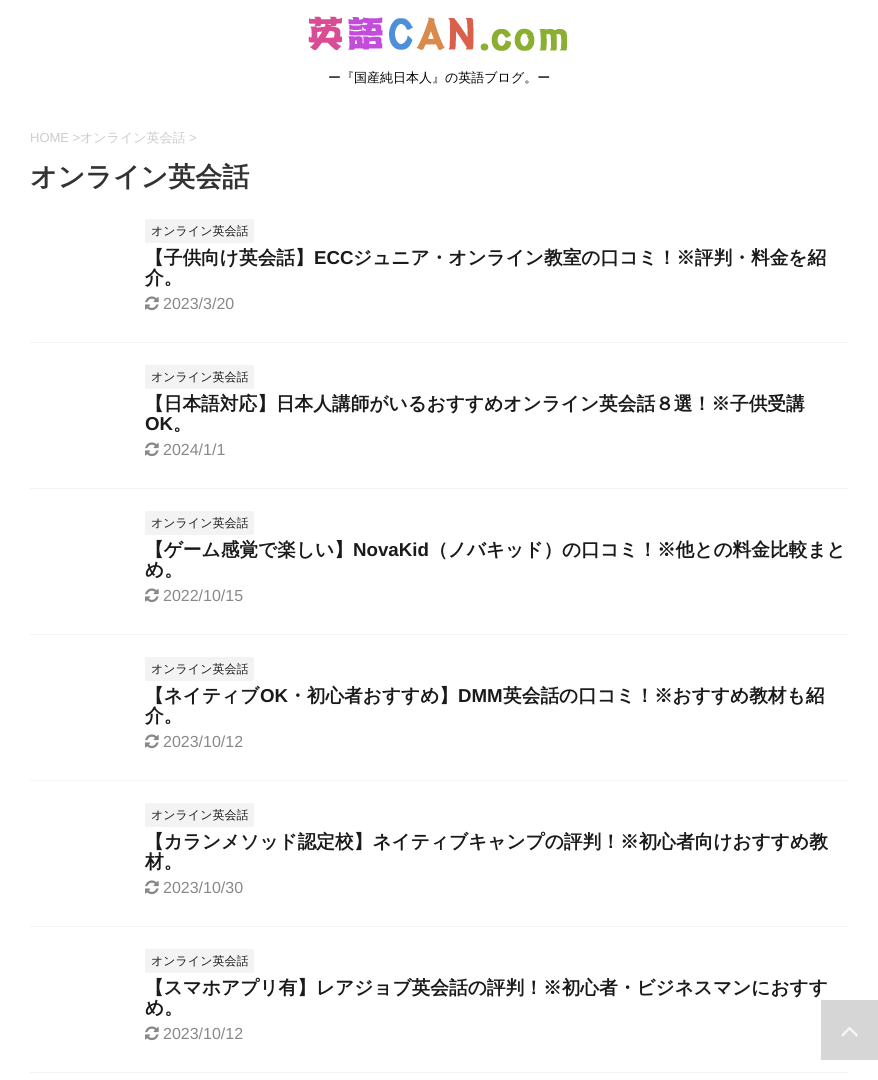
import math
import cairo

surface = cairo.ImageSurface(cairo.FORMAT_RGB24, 878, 1080)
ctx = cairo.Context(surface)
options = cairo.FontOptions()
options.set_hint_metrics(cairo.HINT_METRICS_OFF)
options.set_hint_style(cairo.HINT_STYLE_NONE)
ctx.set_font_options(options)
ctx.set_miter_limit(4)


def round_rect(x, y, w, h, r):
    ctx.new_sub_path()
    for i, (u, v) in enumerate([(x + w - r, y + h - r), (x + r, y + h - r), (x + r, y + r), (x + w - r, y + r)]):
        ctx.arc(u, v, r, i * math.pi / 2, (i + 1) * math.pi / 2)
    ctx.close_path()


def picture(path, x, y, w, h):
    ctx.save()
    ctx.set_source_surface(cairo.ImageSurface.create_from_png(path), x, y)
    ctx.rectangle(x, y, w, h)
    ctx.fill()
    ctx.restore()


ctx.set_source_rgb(1, 1, 1)
ctx.paint()
picture("img1.png", 308, 16, 259, 35)
ctx.select_font_face("WenQuanYi Zen Hei Medium")
ctx.set_font_size(13)
ctx.set_source_rgb(0, 0, 0)
ctx.move_to(328, 82)
ctx.show_text("ー『国産純日本人』の英語ブログ。ー")
ctx.select_font_face("Liberation Sans")
ctx.set_source_rgb(0.8, 0.8, 0.8)
ctx.move_to(30, 142)
ctx.show_text("HOME >")
ctx.select_font_face("WenQuanYi Zen Hei Medium")
ctx.move_to(80, 142)
ctx.show_text("オンライン英会話")
ctx.select_font_face("Liberation Sans")
ctx.move_to(189, 142)
ctx.show_text(">")
ctx.select_font_face("WenQuanYi Zen Hei", cairo.FONT_SLANT_NORMAL, cairo.FONT_WEIGHT_BOLD)
ctx.set_font_size(27)
ctx.set_source_rgb(0.2, 0.2, 0.2)
ctx.move_to(30, 186)
ctx.show_text("オンライン英会話")
ctx.set_source_rgb(0.953, 0.953, 0.953)
ctx.rectangle(30, 342, 818, 1)
ctx.fill()
round_rect(145, 219, 109, 24, 2)
ctx.fill()
ctx.select_font_face("WenQuanYi Zen Hei Medium")
ctx.set_font_size(12)
ctx.set_source_rgb(0.102, 0.102, 0.102)
ctx.move_to(151, 235)
ctx.show_text("オンライン英会話")
ctx.select_font_face("WenQuanYi Zen Hei", cairo.FONT_SLANT_NORMAL, cairo.FONT_WEIGHT_BOLD)
ctx.set_font_size(18.7)
ctx.move_to(145, 264)
ctx.show_text("【子供向け英会話】")
ctx.select_font_face("Liberation Sans", cairo.FONT_SLANT_NORMAL, cairo.FONT_WEIGHT_BOLD)
ctx.move_to(314, 264)
ctx.show_text("ECC")
ctx.select_font_face("WenQuanYi Zen Hei", cairo.FONT_SLANT_NORMAL, cairo.FONT_WEIGHT_BOLD)
ctx.move_to(353, 264)
ctx.show_text("ジュニア・オンライン教室の口コミ！※評判・料金を紹")
ctx.move_to(145, 284)
ctx.show_text("介。")
picture("img2.png", 145, 296, 14, 15)
ctx.select_font_face("Liberation Sans")
ctx.set_font_size(16)
ctx.set_source_rgb(0.533, 0.533, 0.533)
ctx.move_to(163, 309)
ctx.show_text("2023/3/20")
ctx.set_source_rgb(0.953, 0.953, 0.953)
ctx.rectangle(30, 488, 818, 1)
ctx.fill()
round_rect(145, 365, 109, 24, 2)
ctx.fill()
ctx.select_font_face("WenQuanYi Zen Hei Medium")
ctx.set_font_size(12)
ctx.set_source_rgb(0.102, 0.102, 0.102)
ctx.move_to(151, 381)
ctx.show_text("オンライン英会話")
ctx.select_font_face("WenQuanYi Zen Hei", cairo.FONT_SLANT_NORMAL, cairo.FONT_WEIGHT_BOLD)
ctx.set_font_size(18.7)
ctx.move_to(145, 410)
ctx.show_text("【日本語対応】日本人講師がいるおすすめオンライン英会話８選！※子供受講")
ctx.select_font_face("Liberation Sans", cairo.FONT_SLANT_NORMAL, cairo.FONT_WEIGHT_BOLD)
ctx.move_to(145, 430)
ctx.show_text("OK")
ctx.select_font_face("WenQuanYi Zen Hei", cairo.FONT_SLANT_NORMAL, cairo.FONT_WEIGHT_BOLD)
ctx.move_to(173, 430)
ctx.show_text("。")
picture("img2.png", 145, 442, 14, 15)
ctx.select_font_face("Liberation Sans")
ctx.set_font_size(16)
ctx.set_source_rgb(0.533, 0.533, 0.533)
ctx.move_to(163, 455)
ctx.show_text("2024/1/1")
ctx.set_source_rgb(0.953, 0.953, 0.953)
ctx.rectangle(30, 634, 818, 1)
ctx.fill()
round_rect(145, 511, 109, 24, 2)
ctx.fill()
ctx.select_font_face("WenQuanYi Zen Hei Medium")
ctx.set_font_size(12)
ctx.set_source_rgb(0.102, 0.102, 0.102)
ctx.move_to(151, 527)
ctx.show_text("オンライン英会話")
ctx.select_font_face("WenQuanYi Zen Hei", cairo.FONT_SLANT_NORMAL, cairo.FONT_WEIGHT_BOLD)
ctx.set_font_size(18.7)
ctx.move_to(145, 556)
ctx.show_text("【ゲーム感覚で楽しい】")
ctx.select_font_face("Liberation Sans", cairo.FONT_SLANT_NORMAL, cairo.FONT_WEIGHT_BOLD)
ctx.move_to(353, 556)
ctx.show_text("NovaKid")
ctx.select_font_face("WenQuanYi Zen Hei", cairo.FONT_SLANT_NORMAL, cairo.FONT_WEIGHT_BOLD)
ctx.move_to(429, 556)
ctx.show_text("（ノバキッド）の口コミ！※他との料金比較まと")
ctx.move_to(145, 576)
ctx.show_text("め。")
picture("img2.png", 145, 588, 14, 15)
ctx.select_font_face("Liberation Sans")
ctx.set_font_size(16)
ctx.set_source_rgb(0.533, 0.533, 0.533)
ctx.move_to(163, 601)
ctx.show_text("2022/10/15")
ctx.set_source_rgb(0.953, 0.953, 0.953)
ctx.rectangle(30, 780, 818, 1)
ctx.fill()
round_rect(145, 657, 109, 24, 2)
ctx.fill()
ctx.select_font_face("WenQuanYi Zen Hei Medium")
ctx.set_font_size(12)
ctx.set_source_rgb(0.102, 0.102, 0.102)
ctx.move_to(151, 673)
ctx.show_text("オンライン英会話")
ctx.select_font_face("WenQuanYi Zen Hei", cairo.FONT_SLANT_NORMAL, cairo.FONT_WEIGHT_BOLD)
ctx.set_font_size(18.7)
ctx.move_to(145, 702)
ctx.show_text("【ネイティブ")
ctx.select_font_face("Liberation Sans", cairo.FONT_SLANT_NORMAL, cairo.FONT_WEIGHT_BOLD)
ctx.move_to(260, 702)
ctx.show_text("OK")
ctx.select_font_face("WenQuanYi Zen Hei", cairo.FONT_SLANT_NORMAL, cairo.FONT_WEIGHT_BOLD)
ctx.move_to(288, 702)
ctx.show_text("・初心者おすすめ】")
ctx.select_font_face("Liberation Sans", cairo.FONT_SLANT_NORMAL, cairo.FONT_WEIGHT_BOLD)
ctx.move_to(458, 702)
ctx.show_text("DMM")
ctx.select_font_face("WenQuanYi Zen Hei", cairo.FONT_SLANT_NORMAL, cairo.FONT_WEIGHT_BOLD)
ctx.move_to(503, 702)
ctx.show_text("英会話の口コミ！※おすすめ教材も紹")
ctx.move_to(145, 722)
ctx.show_text("介。")
picture("img2.png", 145, 734, 14, 15)
ctx.select_font_face("Liberation Sans")
ctx.set_font_size(16)
ctx.set_source_rgb(0.533, 0.533, 0.533)
ctx.move_to(163, 747)
ctx.show_text("2023/10/12")
ctx.set_source_rgb(0.953, 0.953, 0.953)
ctx.rectangle(30, 926, 818, 1)
ctx.fill()
round_rect(145, 803, 109, 24, 2)
ctx.fill()
ctx.select_font_face("WenQuanYi Zen Hei Medium")
ctx.set_font_size(12)
ctx.set_source_rgb(0.102, 0.102, 0.102)
ctx.move_to(151, 819)
ctx.show_text("オンライン英会話")
ctx.select_font_face("WenQuanYi Zen Hei", cairo.FONT_SLANT_NORMAL, cairo.FONT_WEIGHT_BOLD)
ctx.set_font_size(18.7)
ctx.move_to(145, 848)
ctx.show_text("【カランメソッド認定校】ネイティブキャンプの評判！※初心者向けおすすめ教")
ctx.move_to(145, 868)
ctx.show_text("材。")
picture("img2.png", 145, 880, 14, 15)
ctx.select_font_face("Liberation Sans")
ctx.set_font_size(16)
ctx.set_source_rgb(0.533, 0.533, 0.533)
ctx.move_to(163, 893)
ctx.show_text("2023/10/30")
ctx.set_source_rgb(0.953, 0.953, 0.953)
ctx.rectangle(30, 1072, 818, 1)
ctx.fill()
round_rect(145, 949, 109, 24, 2)
ctx.fill()
ctx.select_font_face("WenQuanYi Zen Hei Medium")
ctx.set_font_size(12)
ctx.set_source_rgb(0.102, 0.102, 0.102)
ctx.move_to(151, 965)
ctx.show_text("オンライン英会話")
ctx.select_font_face("WenQuanYi Zen Hei", cairo.FONT_SLANT_NORMAL, cairo.FONT_WEIGHT_BOLD)
ctx.set_font_size(18.7)
ctx.move_to(145, 994)
ctx.show_text("【スマホアプリ有】レアジョブ英会話の評判！※初心者・ビジネスマンにおすす")
ctx.move_to(145, 1014)
ctx.show_text("め。")
picture("img2.png", 145, 1026, 14, 15)
ctx.select_font_face("Liberation Sans")
ctx.set_font_size(16)
ctx.set_source_rgb(0.533, 0.533, 0.533)
ctx.move_to(163, 1039)
ctx.show_text("2023/10/12")
ctx.set_source_rgb(0.839, 0.839, 0.839)
ctx.rectangle(821, 1000, 57, 60)
ctx.fill()
picture("img3.png", 841, 1026, 17, 11)
surface.write_to_png("page.png")
